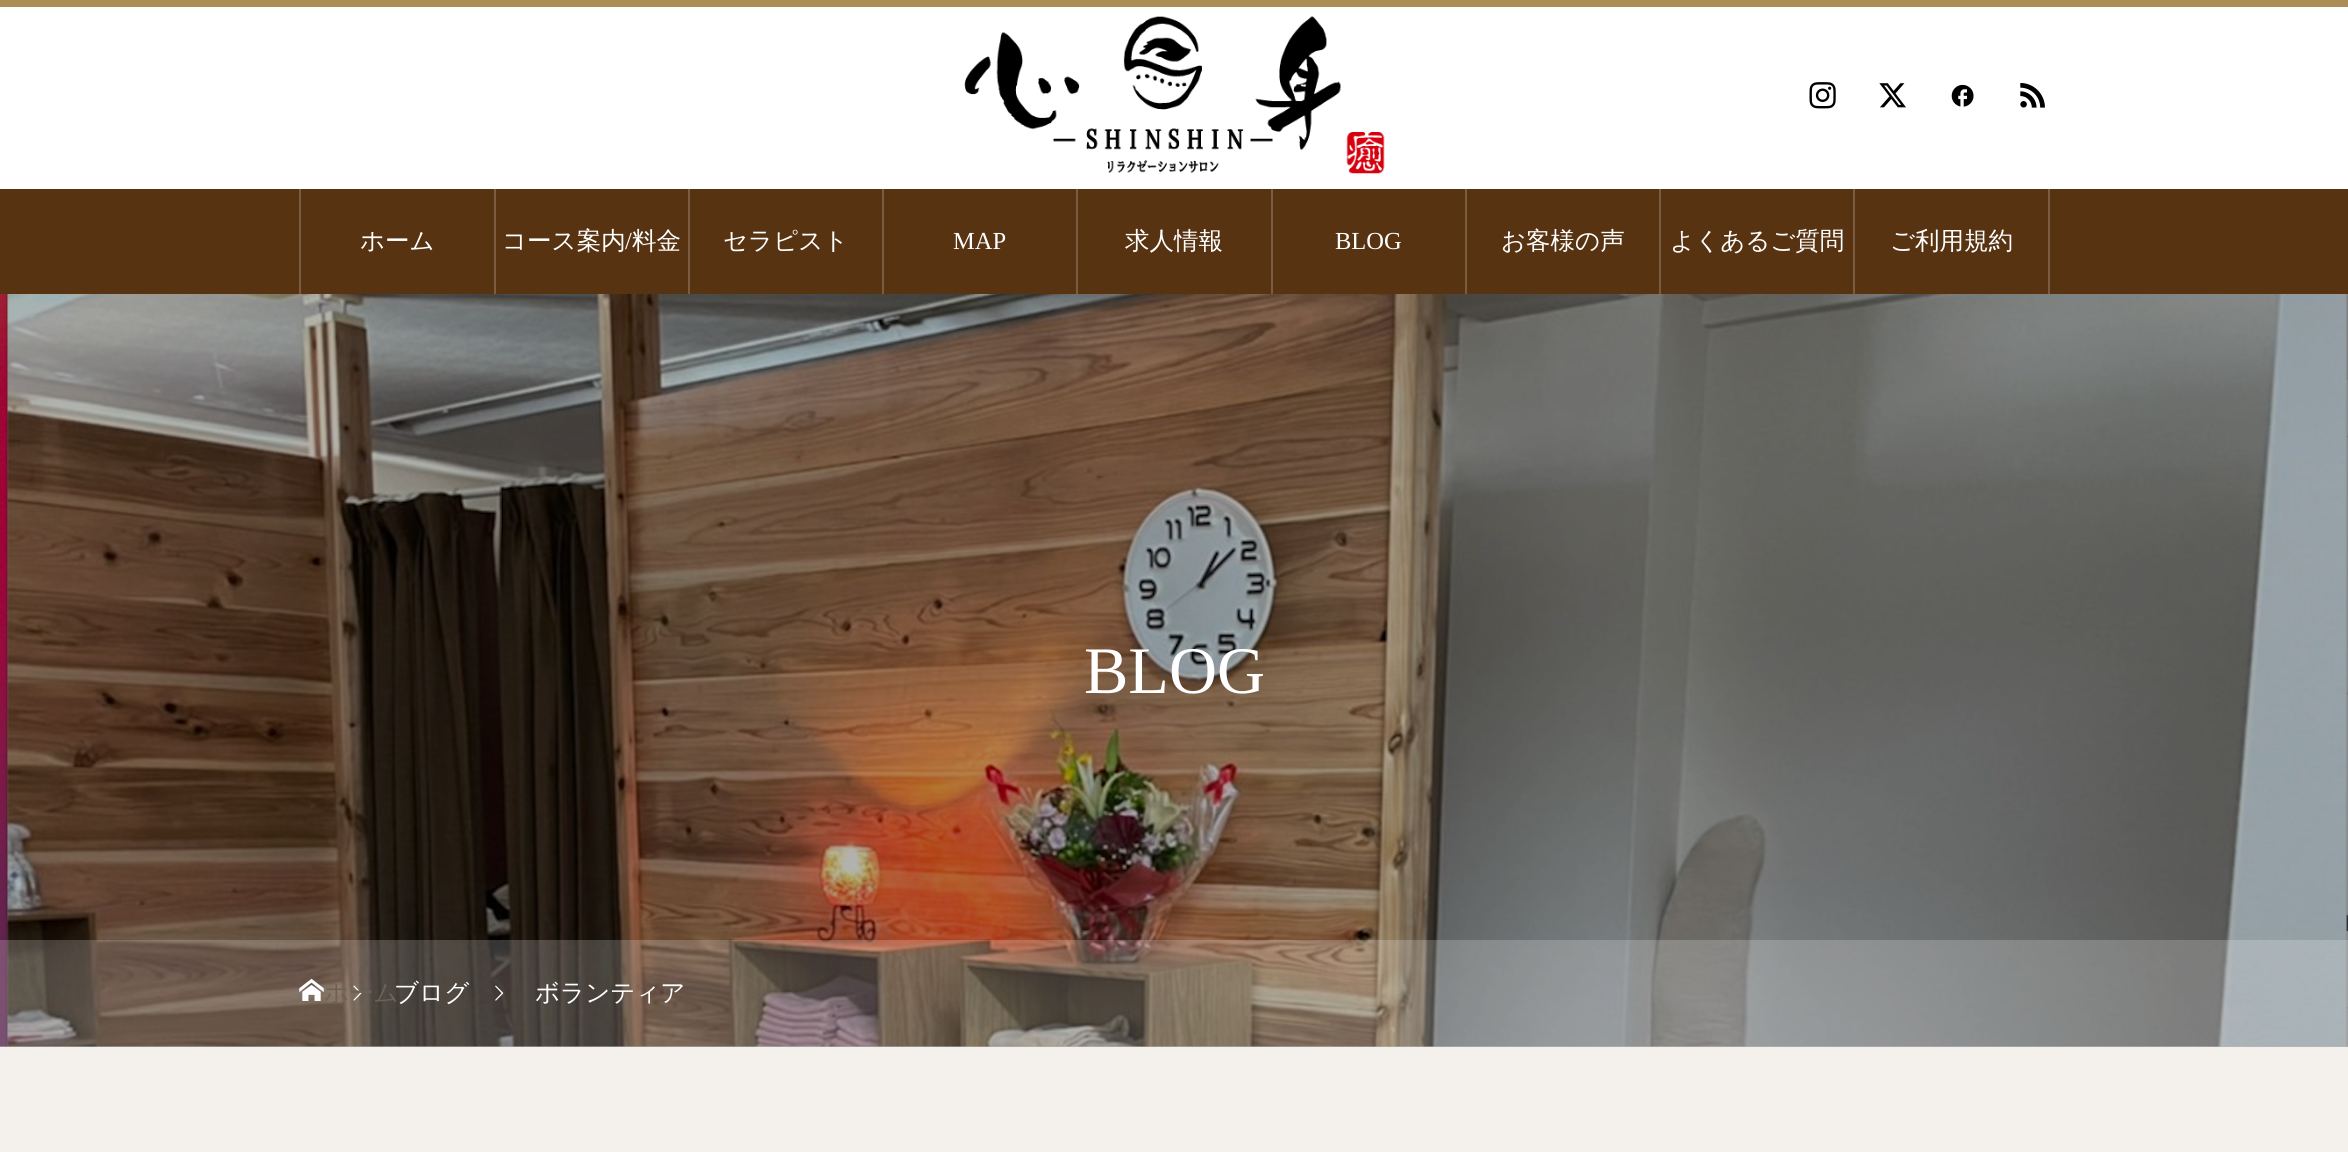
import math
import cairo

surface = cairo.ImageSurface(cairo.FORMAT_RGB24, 2348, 1152)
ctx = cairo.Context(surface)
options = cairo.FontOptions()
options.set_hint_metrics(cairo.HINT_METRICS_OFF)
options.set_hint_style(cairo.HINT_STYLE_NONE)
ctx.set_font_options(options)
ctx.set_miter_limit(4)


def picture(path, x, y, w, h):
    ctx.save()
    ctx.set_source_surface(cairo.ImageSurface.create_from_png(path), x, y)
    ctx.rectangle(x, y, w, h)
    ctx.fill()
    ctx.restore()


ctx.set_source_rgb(0.957, 0.941, 0.925)
ctx.paint()
ctx.set_source_rgb(0.671, 0.659, 0.647)
ctx.rectangle(0, 1046, 2348, 1)
ctx.fill()
ctx.set_source_rgb(1, 1, 1)
ctx.rectangle(0, 7, 2348, 182)
ctx.fill()
ctx.set_source_rgb(0.678, 0.553, 0.337)
ctx.rectangle(0, 0, 2348, 7)
ctx.fill()
picture("img1.png", 964, 15, 421, 159)
picture("img2.png", 1809, 82, 27, 27)
picture("img3.png", 1879, 83, 27, 25)
picture("img4.png", 1951, 84, 23, 23)
picture("img5.png", 2020, 83, 25, 25)
ctx.set_source_rgb(0.341, 0.2, 0.071)
ctx.rectangle(0, 189, 2348, 105)
ctx.fill()
ctx.set_source_rgb(0.475, 0.361, 0.255)
ctx.rectangle(299, 189, 2, 105)
ctx.fill()
ctx.rectangle(494, 189, 2, 105)
ctx.fill()
ctx.select_font_face("WenQuanYi Zen Hei Medium")
ctx.set_font_size(24.5)
ctx.set_source_rgb(1, 1, 1)
ctx.move_to(360, 249)
ctx.show_text("ホーム")
ctx.set_source_rgb(0.475, 0.361, 0.255)
ctx.rectangle(688, 189, 2, 105)
ctx.fill()
ctx.set_source_rgb(1, 1, 1)
ctx.move_to(502, 249)
ctx.show_text("コース案内")
ctx.select_font_face("Liberation Serif")
ctx.move_to(625, 249)
ctx.show_text("/")
ctx.select_font_face("WenQuanYi Zen Hei Medium")
ctx.move_to(632, 249)
ctx.show_text("料金")
ctx.set_source_rgb(0.475, 0.361, 0.255)
ctx.rectangle(882, 189, 2, 105)
ctx.fill()
ctx.set_source_rgb(1, 1, 1)
ctx.move_to(723, 249)
ctx.show_text("セラピスト")
ctx.set_source_rgb(0.475, 0.361, 0.255)
ctx.rectangle(1076, 189, 2, 105)
ctx.fill()
ctx.select_font_face("Liberation Serif")
ctx.set_source_rgb(1, 1, 1)
ctx.move_to(953, 249)
ctx.show_text("MAP")
ctx.set_source_rgb(0.475, 0.361, 0.255)
ctx.rectangle(1271, 189, 2, 105)
ctx.fill()
ctx.select_font_face("WenQuanYi Zen Hei Medium")
ctx.set_source_rgb(1, 1, 1)
ctx.move_to(1125, 249)
ctx.show_text("求人情報")
ctx.set_source_rgb(0.475, 0.361, 0.255)
ctx.rectangle(1465, 189, 2, 105)
ctx.fill()
ctx.select_font_face("Liberation Serif")
ctx.set_source_rgb(1, 1, 1)
ctx.move_to(1335, 249)
ctx.show_text("BLOG")
ctx.set_source_rgb(0.475, 0.361, 0.255)
ctx.rectangle(1659, 189, 2, 105)
ctx.fill()
ctx.select_font_face("WenQuanYi Zen Hei Medium")
ctx.set_source_rgb(1, 1, 1)
ctx.move_to(1501, 249)
ctx.show_text("お客様の声")
ctx.set_source_rgb(0.475, 0.361, 0.255)
ctx.rectangle(1853, 189, 2, 105)
ctx.fill()
ctx.set_source_rgb(1, 1, 1)
ctx.move_to(1670, 249)
ctx.show_text("よくあるご質問")
ctx.set_source_rgb(0.475, 0.361, 0.255)
ctx.rectangle(2048, 189, 2, 105)
ctx.fill()
ctx.set_source_rgb(1, 1, 1)
ctx.move_to(1890, 249)
ctx.show_text("ご利用規約")
picture("img6.png", 0, 294, 2348, 753)
ctx.select_font_face("Liberation Serif")
ctx.set_font_size(66.5)
ctx.move_to(1084, 693)
ctx.show_text("BLOG")
ctx.set_source_rgba(1, 1, 1, 0.2)
ctx.rectangle(0, 940, 2348, 107)
ctx.fill()
picture("img7.png", 299, 978, 25, 23)
picture("img8.png", 353, 985, 9, 16)
ctx.select_font_face("WenQuanYi Zen Hei Medium")
ctx.set_font_size(24.5)
ctx.set_source_rgb(0.427, 0.38, 0.337)
ctx.move_to(324, 1001)
ctx.show_text("ホーム")
ctx.set_source_rgb(1, 1, 1)
ctx.move_to(394, 1001)
ctx.show_text("ブログ")
picture("img9.png", 495, 985, 9, 16)
ctx.move_to(535, 1001)
ctx.show_text("ボランティア")
surface.write_to_png("page.png")
